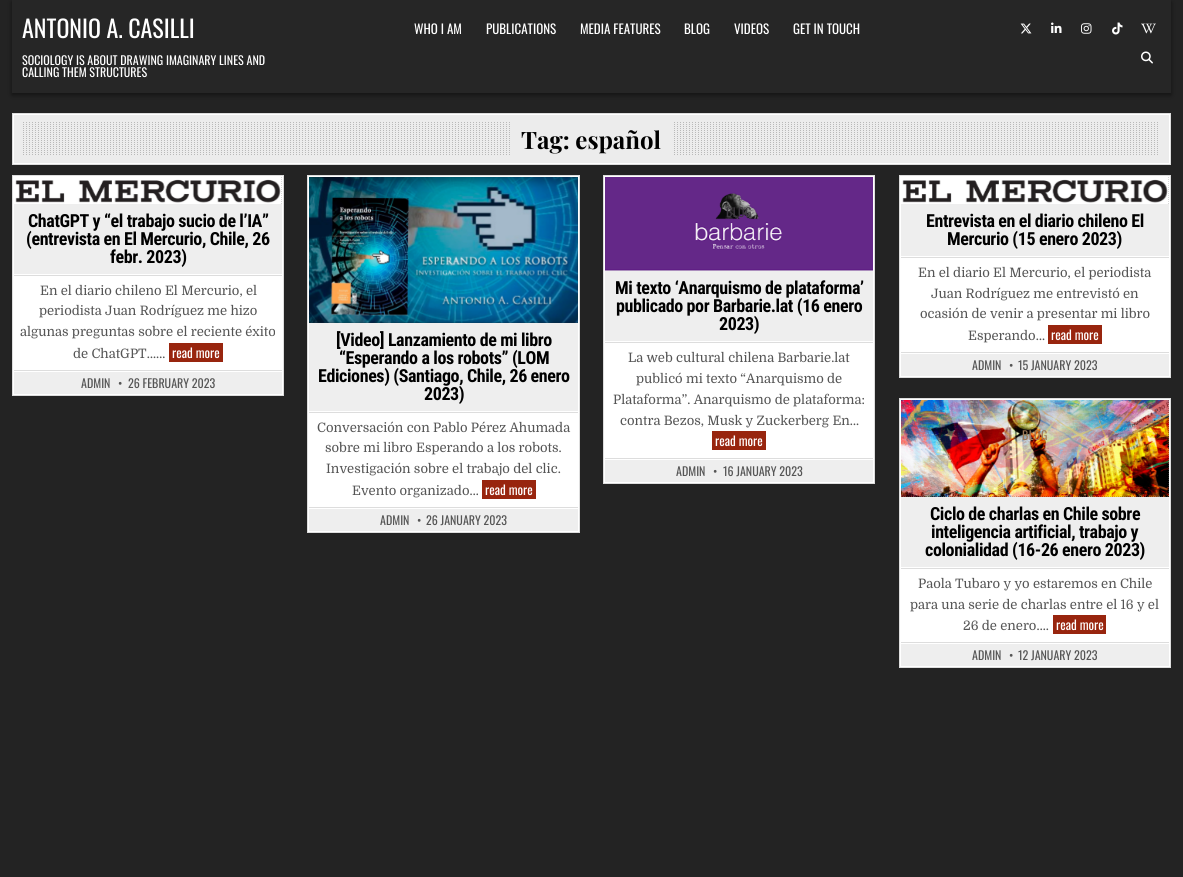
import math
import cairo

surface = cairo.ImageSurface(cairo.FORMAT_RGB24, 1183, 877)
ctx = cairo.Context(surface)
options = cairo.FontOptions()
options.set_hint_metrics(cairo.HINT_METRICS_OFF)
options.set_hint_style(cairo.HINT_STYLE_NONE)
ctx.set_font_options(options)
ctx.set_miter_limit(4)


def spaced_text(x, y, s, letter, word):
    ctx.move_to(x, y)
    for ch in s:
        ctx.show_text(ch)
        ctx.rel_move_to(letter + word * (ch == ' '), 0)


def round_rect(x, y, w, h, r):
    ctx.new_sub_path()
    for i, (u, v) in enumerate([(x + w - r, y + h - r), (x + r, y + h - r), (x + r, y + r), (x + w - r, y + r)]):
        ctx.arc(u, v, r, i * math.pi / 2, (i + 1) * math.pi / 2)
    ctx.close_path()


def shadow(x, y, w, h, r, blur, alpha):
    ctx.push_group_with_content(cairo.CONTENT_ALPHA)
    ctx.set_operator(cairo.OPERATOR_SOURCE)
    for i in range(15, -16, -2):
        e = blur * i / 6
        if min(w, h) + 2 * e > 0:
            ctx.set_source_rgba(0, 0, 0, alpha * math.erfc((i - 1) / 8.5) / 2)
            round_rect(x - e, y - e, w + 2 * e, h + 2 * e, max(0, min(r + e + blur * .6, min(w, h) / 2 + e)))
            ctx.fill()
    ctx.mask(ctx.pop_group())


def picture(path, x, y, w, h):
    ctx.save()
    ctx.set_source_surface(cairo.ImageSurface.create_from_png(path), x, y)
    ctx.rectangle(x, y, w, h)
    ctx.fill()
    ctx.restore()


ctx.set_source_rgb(0.137, 0.137, 0.137)
ctx.paint()
ctx.set_source_rgb(0, 0, 0)
shadow(12, 2, 1159, 93, 0, 2.5, 0.5)
ctx.set_source_rgb(0.149, 0.149, 0.149)
ctx.rectangle(12, 0, 1159, 93)
ctx.fill()
ctx.select_font_face("Oswald")
ctx.set_font_size(24)
ctx.set_source_rgb(1, 1, 1)
ctx.move_to(22, 38)
ctx.show_text("ANTONIO A. CASILLI")
ctx.set_font_size(12)
ctx.move_to(22, 65)
ctx.show_text("SOCIOLOGY IS ABOUT DRAWING IMAGINARY LINES AND")
ctx.move_to(22, 77)
ctx.show_text("CALLING THEM STRUCTURES")
ctx.set_font_size(13)
ctx.move_to(414, 34)
ctx.show_text("WHO I AM")
ctx.move_to(486, 34)
ctx.show_text("PUBLICATIONS")
ctx.move_to(580, 34)
ctx.show_text("MEDIA FEATURES")
ctx.move_to(684, 34)
ctx.show_text("BLOG")
ctx.move_to(734, 34)
ctx.show_text("VIDEOS")
ctx.move_to(793, 34)
ctx.show_text("GET IN TOUCH")
picture("img1.png", 1020, 23, 12, 11)
picture("img2.png", 1051, 22, 11, 11)
picture("img3.png", 1081, 23, 11, 11)
picture("img4.png", 1112, 22, 11, 13)
picture("img5.png", 1141, 23, 15, 11)
picture("img6.png", 1141, 51, 12, 13)
ctx.set_source_rgb(0.925, 0.925, 0.925)
ctx.rectangle(14, 115, 1155, 48)
ctx.fill()
ctx.save()
ctx.rectangle(13, 114, 1157, 50)
ctx.clip()
ctx.set_source_rgb(1, 1, 1)
ctx.set_fill_rule(cairo.FILL_RULE_EVEN_ODD)
ctx.new_path()
ctx.move_to(-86, 15)
ctx.line_to(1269, 15)
ctx.line_to(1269, 263)
ctx.line_to(-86, 263)
ctx.close_path()
ctx.move_to(12, 113)
ctx.line_to(1169, 113)
ctx.line_to(1169, 163)
ctx.line_to(12, 163)
ctx.close_path()
ctx.fill()
ctx.new_path()
ctx.move_to(-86, 15)
ctx.line_to(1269, 15)
ctx.line_to(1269, 263)
ctx.line_to(-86, 263)
ctx.close_path()
ctx.move_to(14, 115)
ctx.line_to(1171, 115)
ctx.line_to(1171, 165)
ctx.line_to(14, 165)
ctx.close_path()
ctx.fill()
ctx.restore()
ctx.rectangle(12.5, 113.5, 1158, 51)
ctx.set_source_rgb(0.867, 0.867, 0.867)
ctx.set_line_width(1)
ctx.stroke()
picture("img7.png", 23, 122, 1135, 33)
ctx.set_source_rgb(0.925, 0.925, 0.925)
ctx.rectangle(512, 122, 160, 33)
ctx.fill()
ctx.select_font_face("Playfair Display", cairo.FONT_SLANT_NORMAL, cairo.FONT_WEIGHT_BOLD)
ctx.set_font_size(24)
ctx.set_source_rgb(0, 0, 0)
ctx.move_to(521, 149)
ctx.show_text("Tag: español")
ctx.set_source_rgb(1, 1, 1)
ctx.rectangle(12.5, 175.5, 271, 220)
ctx.fill_preserve()
ctx.set_source_rgb(0.867, 0.867, 0.867)
ctx.stroke()
picture("img8.png", 281, 177, 1, 27)
picture("img9.png", 14, 177, 268, 27)
ctx.set_source_rgb(0.933, 0.933, 0.933)
ctx.rectangle(14, 204, 268, 70)
ctx.fill()
ctx.select_font_face("Roboto Condensed", cairo.FONT_SLANT_NORMAL, cairo.FONT_WEIGHT_BOLD)
ctx.set_font_size(18)
ctx.set_source_rgb(0, 0, 0)
spaced_text(28, 227, "ChatGPT y “el trabajo sucio de l’IA”", -0.4, 0)
spaced_text(26, 245, "(entrevista en El Mercurio, Chile, 26", -0.4, 0)
spaced_text(110, 263, "febr. 2023)", -0.4, 0)
ctx.set_source_rgb(0.867, 0.867, 0.867)
ctx.rectangle(14, 275, 268, 1)
ctx.fill()
ctx.select_font_face("Domine")
ctx.set_font_size(13)
ctx.set_source_rgb(0.333, 0.333, 0.333)
ctx.move_to(40, 295)
ctx.show_text("En el diario chileno El Mercurio, el")
ctx.move_to(39, 315)
ctx.show_text("periodista Juan Rodríguez me hizo")
ctx.move_to(20, 336)
ctx.show_text("algunas preguntas sobre el reciente éxito")
ctx.move_to(73, 358)
ctx.show_text("de ChatGPT……")
ctx.set_source_rgb(0.596, 0.145, 0.055)
ctx.rectangle(169, 343, 54, 19)
ctx.fill()
ctx.select_font_face("Oswald")
ctx.set_source_rgb(1, 1, 1)
ctx.move_to(172, 358)
ctx.show_text("read more")
ctx.set_source_rgb(0.933, 0.933, 0.933)
ctx.rectangle(14, 372, 268, 22)
ctx.fill()
ctx.set_source_rgb(0.867, 0.867, 0.867)
ctx.rectangle(14, 370, 268, 1)
ctx.fill()
ctx.set_font_size(12)
ctx.set_source_rgb(0.333, 0.333, 0.333)
ctx.move_to(81, 388)
ctx.show_text("ADMIN")
ctx.move_to(118, 388)
ctx.show_text("•")
ctx.move_to(128, 388)
ctx.show_text("26 FEBRUARY 2023")
ctx.set_source_rgb(1, 1, 1)
ctx.rectangle(603.5, 175.5, 271, 308)
ctx.fill_preserve()
ctx.set_source_rgb(0.867, 0.867, 0.867)
ctx.stroke()
picture("img10.png", 605, 177, 268, 94)
ctx.set_source_rgb(0.239, 0.224, 0.251)
spaced_text(726, 217, "BLOG", 0.5, 0)
ctx.set_source_rgb(0.933, 0.933, 0.933)
ctx.rectangle(605, 271, 268, 70)
ctx.fill()
ctx.select_font_face("Roboto Condensed", cairo.FONT_SLANT_NORMAL, cairo.FONT_WEIGHT_BOLD)
ctx.set_font_size(18)
ctx.set_source_rgb(0, 0, 0)
spaced_text(615, 294, "Mi texto ‘Anarquismo de plataforma’", -0.4, 0)
spaced_text(616, 312, "publicado por Barbarie.lat (16 enero", -0.4, 0)
spaced_text(719, 330, "2023)", -0.4, 0)
ctx.set_source_rgb(0.867, 0.867, 0.867)
ctx.rectangle(605, 342, 268, 1)
ctx.fill()
ctx.select_font_face("Domine")
ctx.set_font_size(13)
ctx.set_source_rgb(0.333, 0.333, 0.333)
ctx.move_to(628, 362)
ctx.show_text("La web cultural chilena Barbarie.lat")
ctx.move_to(636, 383)
ctx.show_text("publicó mi texto “Anarquismo de")
ctx.move_to(613, 404)
ctx.show_text("Plataforma”. Anarquismo de plataforma:")
ctx.move_to(620, 425)
ctx.show_text("contra Bezos, Musk y Zuckerberg En…")
ctx.set_source_rgb(0.596, 0.145, 0.055)
ctx.rectangle(712, 431, 54, 19)
ctx.fill()
ctx.select_font_face("Oswald")
ctx.set_source_rgb(1, 1, 1)
ctx.move_to(715, 446)
ctx.show_text("read more")
ctx.set_source_rgb(0.933, 0.933, 0.933)
ctx.rectangle(605, 460, 268, 22)
ctx.fill()
ctx.set_source_rgb(0.867, 0.867, 0.867)
ctx.rectangle(605, 458, 268, 1)
ctx.fill()
ctx.set_font_size(12)
ctx.set_source_rgb(0.333, 0.333, 0.333)
ctx.move_to(676, 476)
ctx.show_text("ADMIN")
ctx.move_to(713, 476)
ctx.show_text("•")
ctx.move_to(723, 476)
ctx.show_text("16 JANUARY 2023")
ctx.set_source_rgb(1, 1, 1)
ctx.rectangle(899.5, 175.5, 271, 202)
ctx.fill_preserve()
ctx.set_source_rgb(0.867, 0.867, 0.867)
ctx.stroke()
picture("img8.png", 1168, 177, 1, 27)
picture("img11.png", 901, 177, 268, 27)
ctx.set_source_rgb(0.933, 0.933, 0.933)
ctx.rectangle(901, 204, 268, 52)
ctx.fill()
ctx.select_font_face("Roboto Condensed", cairo.FONT_SLANT_NORMAL, cairo.FONT_WEIGHT_BOLD)
ctx.set_font_size(18)
ctx.set_source_rgb(0, 0, 0)
spaced_text(926, 227, "Entrevista en el diario chileno El", -0.4, 0)
spaced_text(947, 245, "Mercurio (15 enero 2023)", -0.4, 0)
ctx.set_source_rgb(0.867, 0.867, 0.867)
ctx.rectangle(901, 257, 268, 1)
ctx.fill()
ctx.select_font_face("Domine")
ctx.set_font_size(13)
ctx.set_source_rgb(0.333, 0.333, 0.333)
ctx.move_to(918, 277)
ctx.show_text("En el diario El Mercurio, el periodista")
ctx.move_to(931, 298)
ctx.show_text("Juan Rodríguez me entrevistó en")
ctx.move_to(920, 318)
ctx.show_text("ocasión de venir a presentar mi libro")
ctx.move_to(968, 340)
ctx.show_text("Esperando…")
ctx.set_source_rgb(0.596, 0.145, 0.055)
ctx.rectangle(1048, 325, 54, 19)
ctx.fill()
ctx.select_font_face("Oswald")
ctx.set_source_rgb(1, 1, 1)
ctx.move_to(1051, 340)
ctx.show_text("read more")
ctx.set_source_rgb(0.933, 0.933, 0.933)
ctx.rectangle(901, 354, 268, 22)
ctx.fill()
ctx.set_source_rgb(0.867, 0.867, 0.867)
ctx.rectangle(901, 352, 268, 1)
ctx.fill()
ctx.set_font_size(12)
ctx.set_source_rgb(0.333, 0.333, 0.333)
ctx.move_to(972, 370)
ctx.show_text("ADMIN")
ctx.move_to(1009, 370)
ctx.show_text("•")
ctx.move_to(1018, 370)
ctx.show_text("15 JANUARY 2023")
ctx.set_source_rgb(1, 1, 1)
ctx.rectangle(307.5, 175.5, 272, 357)
ctx.fill_preserve()
ctx.set_source_rgb(0.867, 0.867, 0.867)
ctx.stroke()
ctx.set_source_rgb(0.118, 0.169, 0.204)
ctx.rectangle(309, 177, 269, 146)
ctx.fill()
picture("img12.png", 309, 177, 269, 146)
ctx.set_source_rgb(0.933, 0.933, 0.933)
ctx.rectangle(309, 323, 269, 88)
ctx.fill()
ctx.select_font_face("Roboto Condensed", cairo.FONT_SLANT_NORMAL, cairo.FONT_WEIGHT_BOLD)
ctx.set_font_size(18)
ctx.set_source_rgb(0, 0, 0)
spaced_text(336, 346, "[Video] Lanzamiento de mi libro", -0.4, 0)
spaced_text(339, 364, "“Esperando a los robots” (LOM", -0.4, 0)
spaced_text(318, 382, "Ediciones) (Santiago, Chile, 26 enero", -0.4, 0)
spaced_text(424, 400, "2023)", -0.4, 0)
ctx.set_source_rgb(0.867, 0.867, 0.867)
ctx.rectangle(309, 412, 269, 1)
ctx.fill()
ctx.select_font_face("Domine")
ctx.set_font_size(13)
ctx.set_source_rgb(0.333, 0.333, 0.333)
ctx.move_to(317, 432)
ctx.show_text("Conversación con Pablo Pérez Ahumada")
ctx.move_to(325, 452)
ctx.show_text("sobre mi libro Esperando a los robots.")
ctx.move_to(326, 473)
ctx.show_text("Investigación sobre el trabajo del clic.")
ctx.move_to(352, 495)
ctx.show_text("Evento organizado…")
ctx.set_source_rgb(0.596, 0.145, 0.055)
ctx.rectangle(482, 480, 54, 19)
ctx.fill()
ctx.select_font_face("Oswald")
ctx.set_source_rgb(1, 1, 1)
ctx.move_to(485, 495)
ctx.show_text("read more")
ctx.set_source_rgb(0.933, 0.933, 0.933)
ctx.rectangle(309, 509, 269, 22)
ctx.fill()
ctx.set_source_rgb(0.867, 0.867, 0.867)
ctx.rectangle(309, 507, 269, 1)
ctx.fill()
ctx.set_font_size(12)
ctx.set_source_rgb(0.333, 0.333, 0.333)
ctx.move_to(380, 525)
ctx.show_text("ADMIN")
ctx.move_to(417, 525)
ctx.show_text("•")
ctx.move_to(426, 525)
ctx.show_text("26 JANUARY 2023")
ctx.set_source_rgb(1, 1, 1)
ctx.rectangle(899.5, 398.5, 271, 269)
ctx.fill_preserve()
ctx.set_source_rgb(0.867, 0.867, 0.867)
ctx.stroke()
picture("img13.png", 902, 400, 267, 97)
picture("img14.png", 901, 400, 268, 97)
ctx.set_source_rgb(0.624, 0.475, 0.337)
spaced_text(1022, 440, "BLOG", 0.5, 0)
ctx.set_source_rgb(0.933, 0.933, 0.933)
ctx.rectangle(901, 497, 268, 70)
ctx.fill()
ctx.select_font_face("Roboto Condensed", cairo.FONT_SLANT_NORMAL, cairo.FONT_WEIGHT_BOLD)
ctx.set_font_size(18)
ctx.set_source_rgb(0, 0, 0)
spaced_text(930, 520, "Ciclo de charlas en Chile sobre", -0.4, 0)
spaced_text(931, 538, "inteligencia artificial, trabajo y", -0.4, 0)
spaced_text(925, 556, "colonialidad (16-26 enero 2023)", -0.4, 0)
ctx.set_source_rgb(0.867, 0.867, 0.867)
ctx.rectangle(901, 568, 268, 1)
ctx.fill()
ctx.select_font_face("Domine")
ctx.set_font_size(13)
ctx.set_source_rgb(0.333, 0.333, 0.333)
ctx.move_to(918, 588)
ctx.show_text("Paola Tubaro y yo estaremos en Chile")
ctx.move_to(910, 609)
ctx.show_text("para una serie de charlas entre el 16 y el")
ctx.move_to(963, 630)
ctx.show_text("26 de enero….")
ctx.set_source_rgb(0.596, 0.145, 0.055)
ctx.rectangle(1053, 615, 53, 19)
ctx.fill()
ctx.select_font_face("Oswald")
ctx.set_source_rgb(1, 1, 1)
ctx.move_to(1056, 630)
ctx.show_text("read more")
ctx.set_source_rgb(0.933, 0.933, 0.933)
ctx.rectangle(901, 644, 268, 22)
ctx.fill()
ctx.set_source_rgb(0.867, 0.867, 0.867)
ctx.rectangle(901, 642, 268, 1)
ctx.fill()
ctx.set_font_size(12)
ctx.set_source_rgb(0.333, 0.333, 0.333)
ctx.move_to(972, 660)
ctx.show_text("ADMIN")
ctx.move_to(1009, 660)
ctx.show_text("•")
ctx.move_to(1018, 660)
ctx.show_text("12 JANUARY 2023")
surface.write_to_png("page.png")
